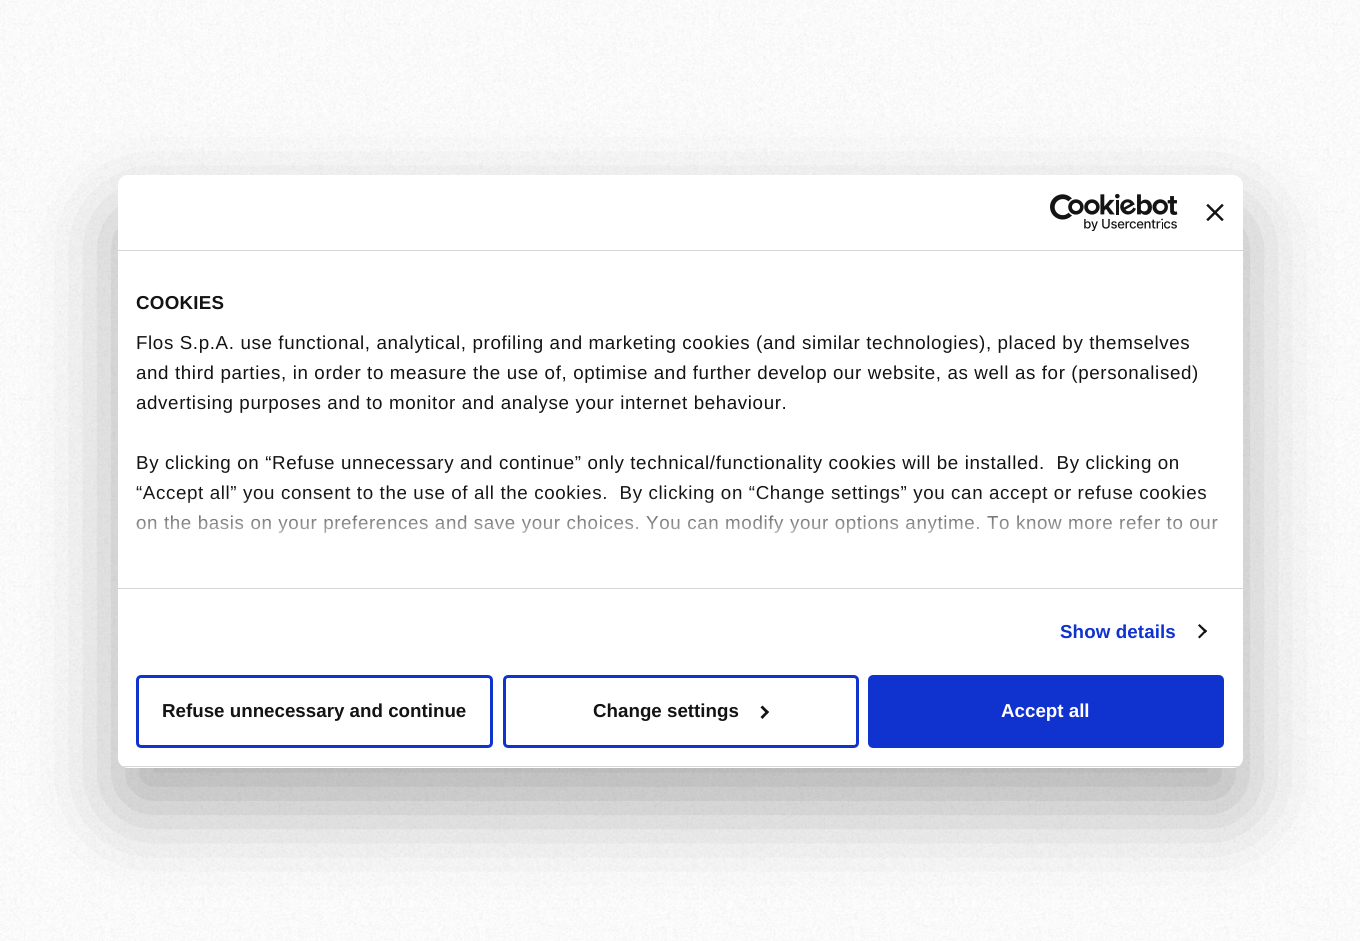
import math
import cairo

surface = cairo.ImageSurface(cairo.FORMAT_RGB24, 1360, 941)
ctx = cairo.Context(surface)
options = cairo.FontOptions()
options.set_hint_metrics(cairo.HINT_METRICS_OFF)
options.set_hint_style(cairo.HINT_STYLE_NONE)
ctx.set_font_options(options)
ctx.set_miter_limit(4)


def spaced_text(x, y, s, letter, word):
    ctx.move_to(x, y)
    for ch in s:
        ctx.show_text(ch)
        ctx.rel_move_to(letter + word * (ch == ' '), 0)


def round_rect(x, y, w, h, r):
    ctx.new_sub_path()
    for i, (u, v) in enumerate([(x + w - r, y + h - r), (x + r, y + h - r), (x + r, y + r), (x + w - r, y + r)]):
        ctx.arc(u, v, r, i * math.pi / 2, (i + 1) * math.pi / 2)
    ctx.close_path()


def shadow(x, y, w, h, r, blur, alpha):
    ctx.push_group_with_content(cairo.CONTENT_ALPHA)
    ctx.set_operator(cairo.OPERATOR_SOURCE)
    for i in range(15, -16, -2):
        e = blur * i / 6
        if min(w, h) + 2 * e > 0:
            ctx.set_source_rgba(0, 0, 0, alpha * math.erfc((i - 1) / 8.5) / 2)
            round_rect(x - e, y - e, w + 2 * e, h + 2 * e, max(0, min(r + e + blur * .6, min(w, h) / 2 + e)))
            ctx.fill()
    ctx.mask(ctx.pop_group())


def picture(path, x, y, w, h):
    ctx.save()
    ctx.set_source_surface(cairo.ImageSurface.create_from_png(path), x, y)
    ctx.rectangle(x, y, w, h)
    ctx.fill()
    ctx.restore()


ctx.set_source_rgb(1, 1, 1)
ctx.paint()
picture("img1.png", 0, 0, 1360, 941)
ctx.set_source_rgb(0, 0, 0)
shadow(118, 215, 1125, 593, 10, 42.5, 0.3)
ctx.set_source_rgb(1, 1, 1)
round_rect(118, 175, 1125, 593, 10)
ctx.fill()
ctx.set_source_rgb(0.839, 0.839, 0.839)
ctx.rectangle(118, 250, 1125, 1)
ctx.fill()
picture("img2.png", 1050, 194, 128, 37)
picture("img3.png", 1206, 204, 18, 17)
ctx.rectangle(118, 588, 1125, 1)
ctx.fill()
ctx.select_font_face("Liberation Sans", cairo.FONT_SLANT_NORMAL, cairo.FONT_WEIGHT_BOLD)
ctx.set_font_size(18.75)
ctx.set_source_rgb(0.078, 0.078, 0.078)
spaced_text(136, 309, "COOKIES", 0.25, 0)
ctx.select_font_face("Liberation Sans")
spaced_text(136, 349, "Flos S.p.A. use functional, analytical, profiling and marketing cookies (and similar technologies), placed by themselves", 0.62, 0)
spaced_text(136, 379, "and third parties, in order to measure the use of, optimise and further develop our website, as well as for (personalised)", 0.62, 0)
spaced_text(136, 409, "advertising purposes and to monitor and analyse your internet behaviour.", 0.62, 0)
spaced_text(136, 469, "By clicking on “Refuse unnecessary and continue” only technical/functionality cookies will be installed.  By clicking on", 0.62, 0)
spaced_text(136, 499, "“Accept all” you consent to the use of all the cookies.  By clicking on “Change settings” you can accept or refuse cookies", 0.62, 0)
spaced_text(136, 529, "on the basis on your preferences and save your choices. You can modify your options anytime. To know more refer to our", 0.62, 0)
gradient = cairo.LinearGradient(672, 588, 672, 494)
gradient.add_color_stop_rgba(0, 1, 1, 1, 1)
gradient.add_color_stop_rgba(0.5, 1, 1, 1, 0.8)
gradient.add_color_stop_rgba(1, 1, 1, 1, 0)
ctx.set_source(gradient)
ctx.rectangle(137, 495, 1081, 38)
ctx.fill()
ctx.select_font_face("Liberation Sans", cairo.FONT_SLANT_NORMAL, cairo.FONT_WEIGHT_BOLD)
ctx.set_source_rgb(0.063, 0.196, 0.812)
spaced_text(1060, 638, "Show details", 0.1, 0)
ctx.set_source_rgb(0.078, 0.078, 0.078)
ctx.new_path()
ctx.move_to(1199.5, 624)
ctx.line_to(1207, 631)
ctx.line_to(1205.5, 633)
ctx.line_to(1198, 625.5)
ctx.close_path()
ctx.fill()
ctx.new_path()
ctx.move_to(1205.5, 629.5)
ctx.line_to(1207, 631)
ctx.line_to(1199.5, 638.5)
ctx.line_to(1198, 637)
ctx.close_path()
ctx.fill()
ctx.save()
round_rect(118, 175, 1125, 593, 10)
ctx.clip()
ctx.set_source_rgb(0.839, 0.839, 0.839)
ctx.rectangle(118, 766, 1125, 1)
ctx.fill()
ctx.restore()
round_rect(137.5, 676.5, 354, 70, 3.5)
ctx.set_source_rgb(0.063, 0.196, 0.812)
ctx.set_line_width(3)
ctx.stroke()
ctx.set_source_rgb(0.078, 0.078, 0.078)
ctx.move_to(162, 717)
ctx.show_text("Refuse unnecessary and continue")
round_rect(504.5, 676.5, 353, 70, 3.5)
ctx.set_source_rgb(0.063, 0.196, 0.812)
ctx.stroke()
ctx.set_source_rgb(0.078, 0.078, 0.078)
ctx.move_to(593, 717)
ctx.show_text("Change settings")
ctx.new_path()
ctx.move_to(762.5, 705.5)
ctx.line_to(769, 712)
ctx.line_to(767, 714)
ctx.line_to(760.5, 707.5)
ctx.close_path()
ctx.fill()
ctx.new_path()
ctx.move_to(767, 710.5)
ctx.line_to(769, 712)
ctx.line_to(762.5, 719)
ctx.line_to(760.5, 717)
ctx.close_path()
ctx.fill()
ctx.set_source_rgb(0.063, 0.196, 0.812)
round_rect(869.5, 676.5, 353, 70, 3.5)
ctx.fill_preserve()
ctx.stroke()
ctx.set_source_rgb(1, 1, 1)
ctx.move_to(1001, 717)
ctx.show_text("Accept all")
surface.write_to_png("page.png")
